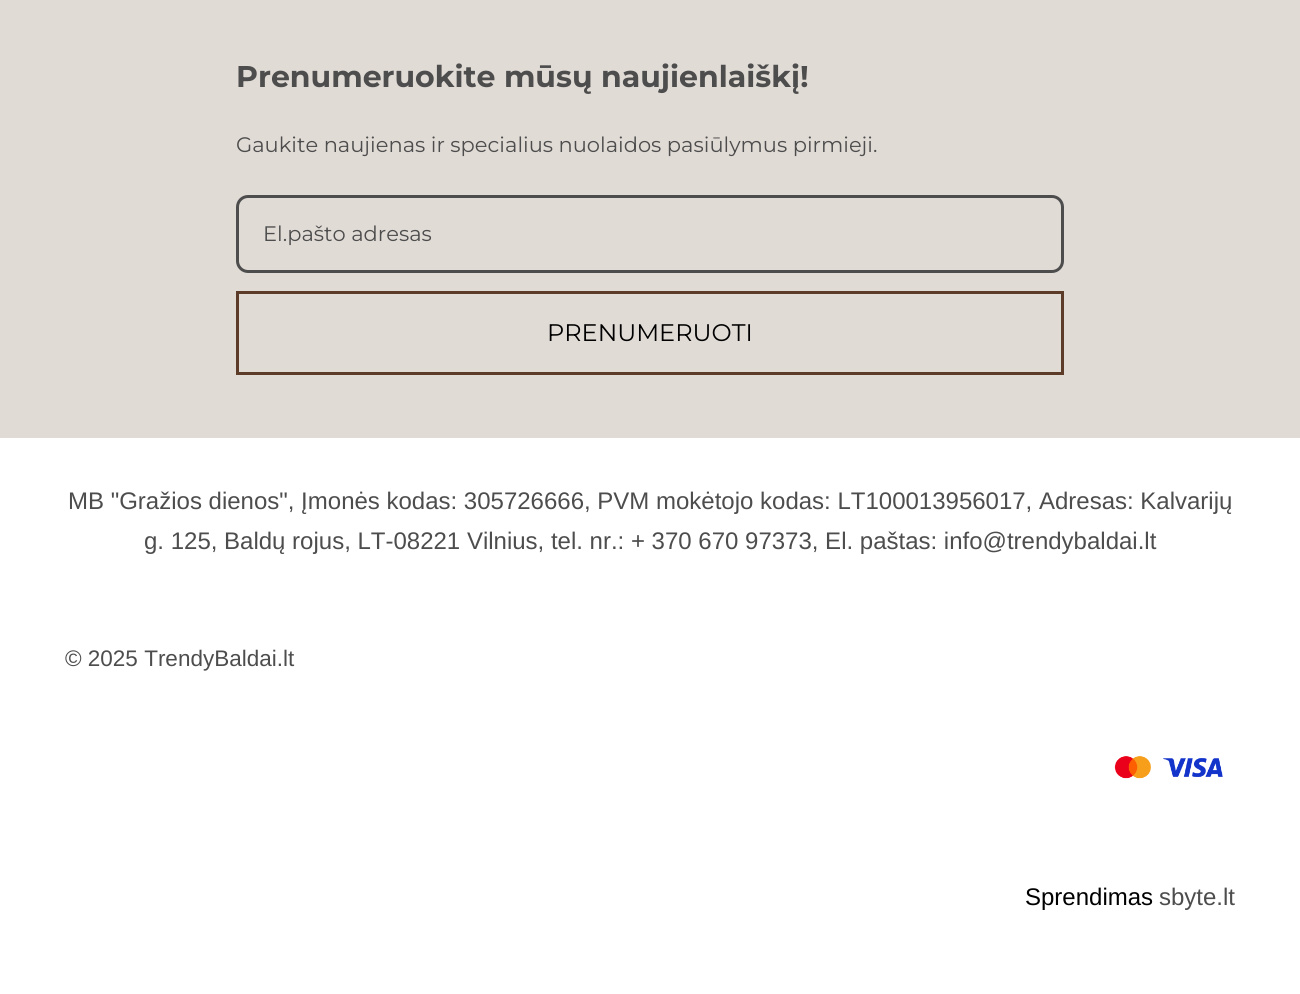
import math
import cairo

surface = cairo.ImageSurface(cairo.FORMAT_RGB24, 1300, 994)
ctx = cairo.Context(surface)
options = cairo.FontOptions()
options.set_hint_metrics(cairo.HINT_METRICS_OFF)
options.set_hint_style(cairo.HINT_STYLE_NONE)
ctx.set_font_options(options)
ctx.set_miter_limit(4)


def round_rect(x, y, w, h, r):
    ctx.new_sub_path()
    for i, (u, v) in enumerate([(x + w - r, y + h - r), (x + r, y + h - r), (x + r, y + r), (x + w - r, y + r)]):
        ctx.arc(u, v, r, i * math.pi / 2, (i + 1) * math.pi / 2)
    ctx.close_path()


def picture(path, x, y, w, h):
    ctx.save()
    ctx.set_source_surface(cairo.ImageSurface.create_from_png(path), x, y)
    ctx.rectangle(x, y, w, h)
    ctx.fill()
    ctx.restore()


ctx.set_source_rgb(1, 1, 1)
ctx.paint()
ctx.set_source_rgb(0.882, 0.859, 0.839)
ctx.rectangle(0, 0, 1300, 438)
ctx.fill()
ctx.select_font_face("Montserrat", cairo.FONT_SLANT_NORMAL, cairo.FONT_WEIGHT_BOLD)
ctx.set_font_size(30)
ctx.set_source_rgb(0.302, 0.302, 0.302)
ctx.move_to(236, 87)
ctx.show_text("Prenumeruokite mūsų naujienlaiškį!")
ctx.select_font_face("Montserrat")
ctx.set_font_size(21)
ctx.move_to(236, 152)
ctx.show_text("Gaukite naujienas ir specialius nuolaidos pasiūlymus pirmieji.")
round_rect(237.5, 196.5, 825, 75, 10.5)
ctx.set_line_width(3)
ctx.stroke()
ctx.move_to(263, 241)
ctx.show_text("El.pašto adresas")
ctx.rectangle(237.5, 292.5, 825, 81)
ctx.set_source_rgb(0.361, 0.231, 0.157)
ctx.stroke()
ctx.set_font_size(24)
ctx.set_source_rgb(0, 0, 0)
ctx.move_to(547, 341)
ctx.show_text("PRENUMERUOTI")
ctx.select_font_face("Liberation Sans")
ctx.set_source_rgb(0.302, 0.302, 0.302)
ctx.move_to(68, 509)
ctx.show_text("MB \"Gražios dienos\", Įmonės kodas: 305726666, PVM mokėtojo kodas: LT100013956017, Adresas: Kalvarijų")
ctx.move_to(144, 549)
ctx.show_text("g. 125, Baldų rojus, LT-08221 Vilnius, tel. nr.: + 370 670 97373, El. paštas: info@trendybaldai.lt")
ctx.set_font_size(22.5)
ctx.move_to(65, 666)
ctx.show_text("© 2025 TrendyBaldai.lt")
picture("img1.png", 1114, 756, 109, 23)
ctx.set_font_size(24)
ctx.set_source_rgb(0, 0, 0)
ctx.move_to(1025, 905)
ctx.show_text("Sprendimas")
ctx.set_source_rgb(0.302, 0.302, 0.302)
ctx.move_to(1159, 905)
ctx.show_text("sbyte.lt")
surface.write_to_png("page.png")
